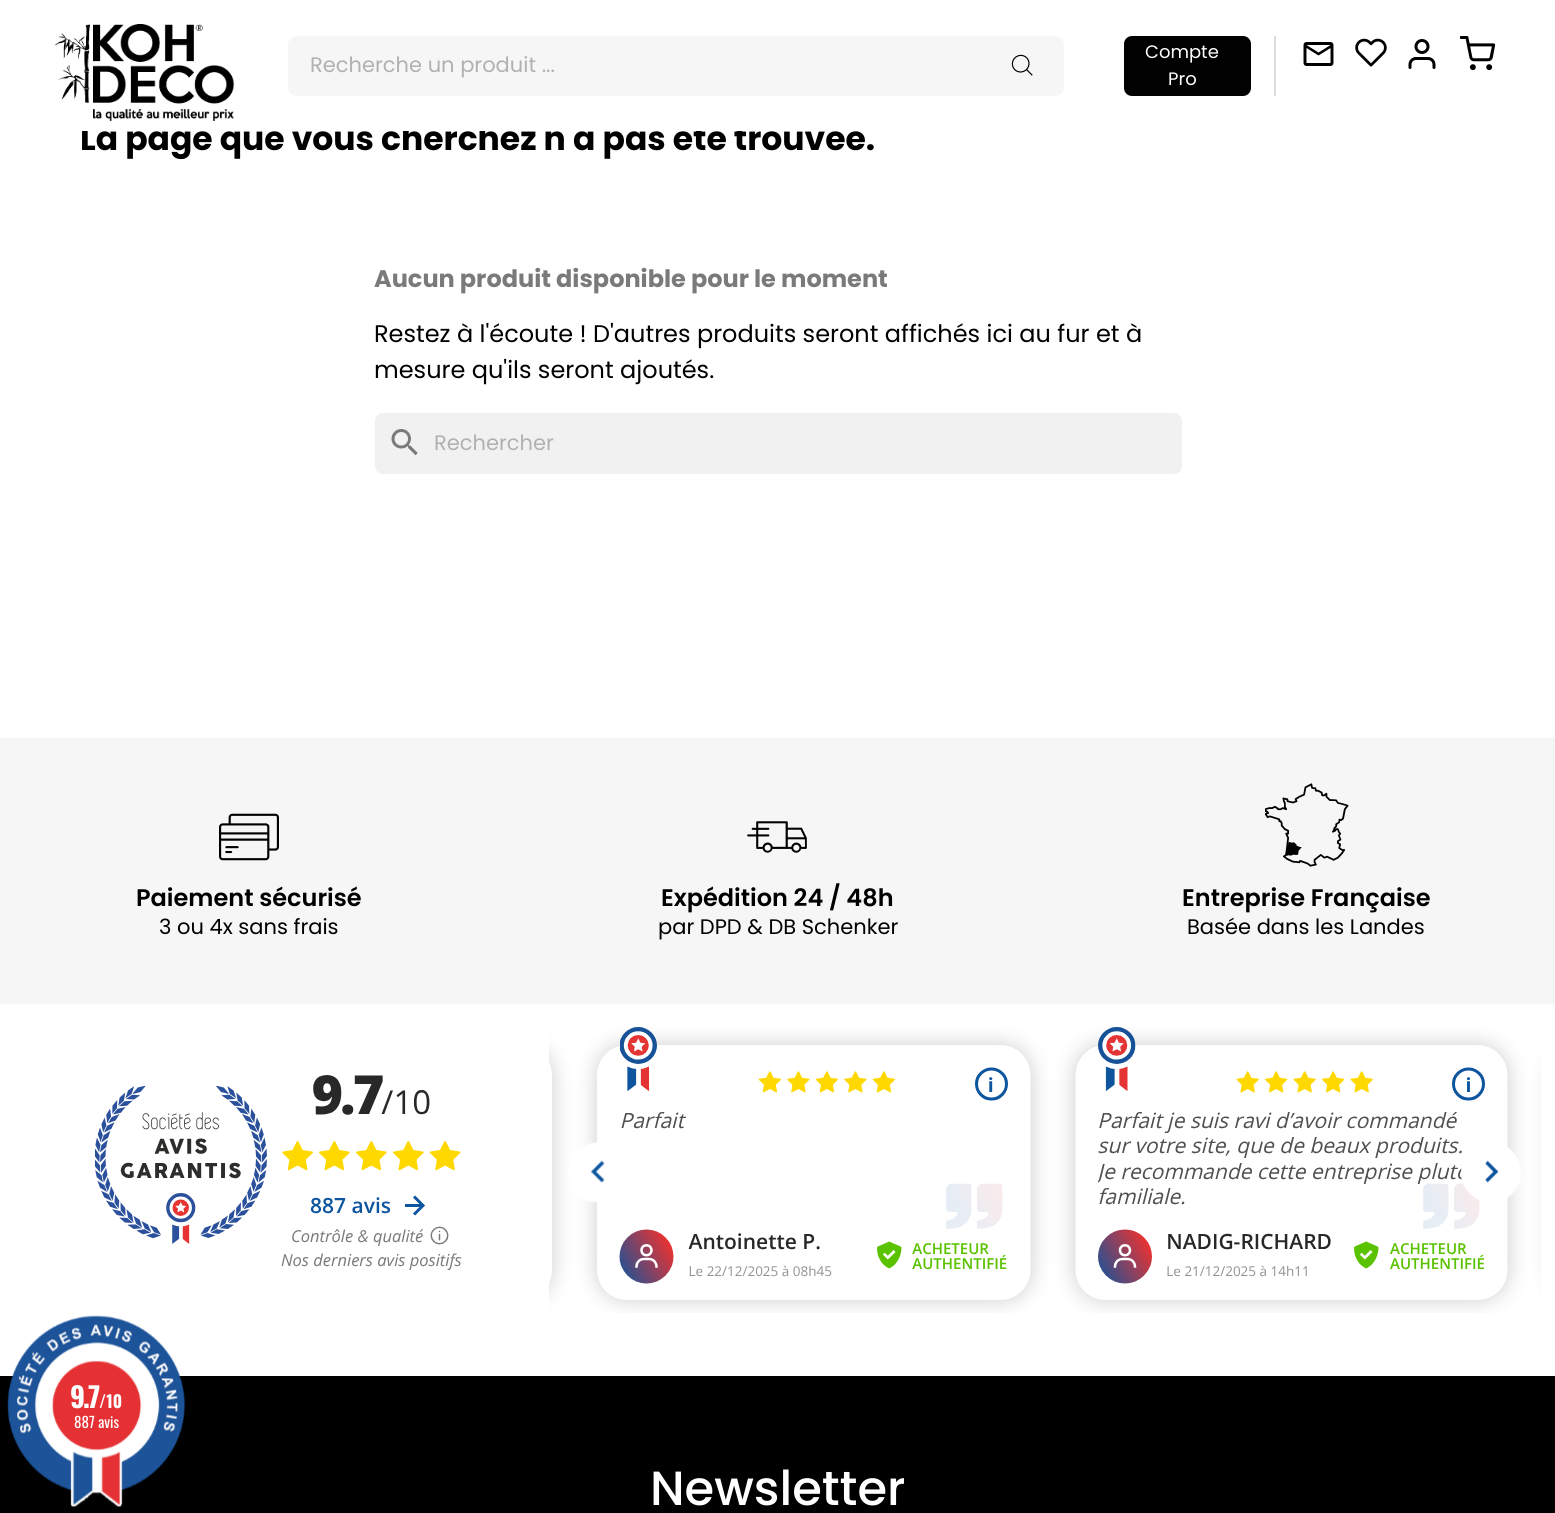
import math
import cairo

surface = cairo.ImageSurface(cairo.FORMAT_RGB24, 1555, 1513)
ctx = cairo.Context(surface)
options = cairo.FontOptions()
options.set_hint_metrics(cairo.HINT_METRICS_OFF)
options.set_hint_style(cairo.HINT_STYLE_NONE)
ctx.set_font_options(options)
ctx.set_miter_limit(4)


def spaced_text(x, y, s, letter, word):
    ctx.move_to(x, y)
    for ch in s:
        ctx.show_text(ch)
        ctx.rel_move_to(letter + word * (ch == ' '), 0)


def round_rect(x, y, w, h, r):
    ctx.new_sub_path()
    for i, (u, v) in enumerate([(x + w - r, y + h - r), (x + r, y + h - r), (x + r, y + r), (x + w - r, y + r)]):
        ctx.arc(u, v, r, i * math.pi / 2, (i + 1) * math.pi / 2)
    ctx.close_path()


def picture(path, x, y, w, h):
    ctx.save()
    ctx.set_source_surface(cairo.ImageSurface.create_from_png(path), x, y)
    ctx.rectangle(x, y, w, h)
    ctx.fill()
    ctx.restore()


ctx.set_source_rgb(1, 1, 1)
ctx.paint()
ctx.select_font_face("Poppins", cairo.FONT_SLANT_NORMAL, cairo.FONT_WEIGHT_BOLD)
ctx.set_font_size(33)
ctx.set_source_rgb(0, 0, 0)
ctx.move_to(80, 150)
ctx.show_text("La page que vous cherchez n'a pas été trouvée.")
ctx.set_source_rgb(1, 1, 1)
ctx.rectangle(82, 122, 758, 9)
ctx.fill()
picture("img1.png", 54, 24, 181, 97)
ctx.set_source_rgb(0.961, 0.961, 0.961)
ctx.new_path()
ctx.move_to(297, 36)
ctx.line_to(1019, 36)
ctx.line_to(1019, 96)
ctx.line_to(297, 96)
ctx.curve_to(292, 96, 288, 92, 288, 87)
ctx.line_to(288, 45)
ctx.curve_to(288, 40, 292, 36, 297, 36)
ctx.close_path()
ctx.fill()
ctx.select_font_face("Poppins")
ctx.set_font_size(21)
ctx.set_source_rgb(0.694, 0.694, 0.694)
ctx.move_to(310, 72)
ctx.show_text("Recherche un produit ...")
ctx.set_source_rgb(0.961, 0.961, 0.961)
ctx.new_path()
ctx.move_to(1019, 36)
ctx.line_to(1055, 36)
ctx.curve_to(1060, 36, 1064, 40, 1064, 45)
ctx.line_to(1064, 87)
ctx.curve_to(1064, 92, 1060, 96, 1055, 96)
ctx.line_to(1019, 96)
ctx.close_path()
ctx.fill()
picture("img2.png", 1011, 54, 22, 22)
ctx.set_source_rgb(0.863, 0.863, 0.863)
ctx.rectangle(1274, 36, 2, 60)
ctx.fill()
ctx.set_source_rgb(0.004, 0.004, 0.004)
round_rect(1124, 36, 127, 60, 8)
ctx.fill()
ctx.set_font_size(18)
ctx.set_source_rgb(1, 1, 1)
ctx.move_to(1145, 58)
ctx.show_text("Compte")
ctx.move_to(1168, 85)
ctx.show_text("Pro")
picture("img3.png", 1303, 42, 31, 24)
picture("img4.png", 1355, 38, 32, 29)
picture("img5.png", 1408, 39, 28, 30)
picture("img6.png", 1460, 36, 36, 35)
ctx.select_font_face("Poppins", cairo.FONT_SLANT_NORMAL, cairo.FONT_WEIGHT_BOLD)
ctx.set_font_size(24)
ctx.set_source_rgb(0.478, 0.478, 0.478)
ctx.move_to(374, 287)
ctx.show_text("Aucun produit disponible pour le moment")
ctx.select_font_face("Poppins")
ctx.set_source_rgb(0, 0, 0)
ctx.move_to(374, 342)
ctx.show_text("Restez à l'écoute ! D'autres produits seront affichés ici au fur et à")
ctx.move_to(374, 378)
ctx.show_text("mesure qu'ils seront ajoutés.")
ctx.set_source_rgb(0.945, 0.945, 0.945)
round_rect(375, 413, 807, 61, 8)
ctx.fill()
picture("img7.png", 391, 429, 27, 27)
ctx.set_font_size(21)
ctx.set_source_rgb(0.694, 0.694, 0.694)
ctx.move_to(434, 450)
ctx.show_text("Rechercher")
ctx.set_source_rgb(0.961, 0.961, 0.961)
ctx.rectangle(0, 738, 1555, 266)
ctx.fill()
picture("img8.png", 219, 813, 60, 48)
ctx.select_font_face("Poppins SemiBold")
ctx.set_font_size(24)
ctx.set_source_rgb(0, 0, 0)
ctx.move_to(136, 906)
ctx.show_text("Paiement sécurisé")
ctx.select_font_face("Poppins")
ctx.set_font_size(21)
ctx.move_to(159, 934)
ctx.show_text("3 ou 4x sans frais")
picture("img9.png", 747, 821, 60, 32)
ctx.select_font_face("Poppins SemiBold")
ctx.set_font_size(24)
ctx.move_to(661, 906)
ctx.show_text("Expédition 24 / 48h")
ctx.select_font_face("Poppins")
ctx.set_font_size(21)
ctx.move_to(658, 934)
ctx.show_text("par DPD & DB Schenker")
picture("img10.png", 1265, 783, 84, 84)
ctx.select_font_face("Poppins SemiBold")
ctx.set_font_size(24)
ctx.move_to(1182, 906)
ctx.show_text("Entreprise Française")
ctx.select_font_face("Poppins")
ctx.set_font_size(21)
ctx.move_to(1187, 934)
ctx.show_text("Basée dans les Landes")
picture("img11.png", 95, 1027, 1446, 286)
ctx.rectangle(0, 1376, 1555, 137)
ctx.fill()
ctx.select_font_face("Poppins Medium")
ctx.set_font_size(48)
ctx.set_source_rgb(1, 1, 1)
ctx.move_to(650, 1505)
ctx.show_text("Newsletter")
picture("img12.png", 7, 1315, 179, 192)
ctx.select_font_face("Oswald", cairo.FONT_SLANT_NORMAL, cairo.FONT_WEIGHT_BOLD)
ctx.set_font_size(28)
spaced_text(70, 1408, "9.7", -2, 0)
ctx.set_font_size(17)
ctx.move_to(99, 1408)
ctx.show_text("/10")
ctx.select_font_face("Oswald")
ctx.set_font_size(15)
ctx.move_to(74, 1428)
ctx.show_text("887 avis")
surface.write_to_png("page.png")
